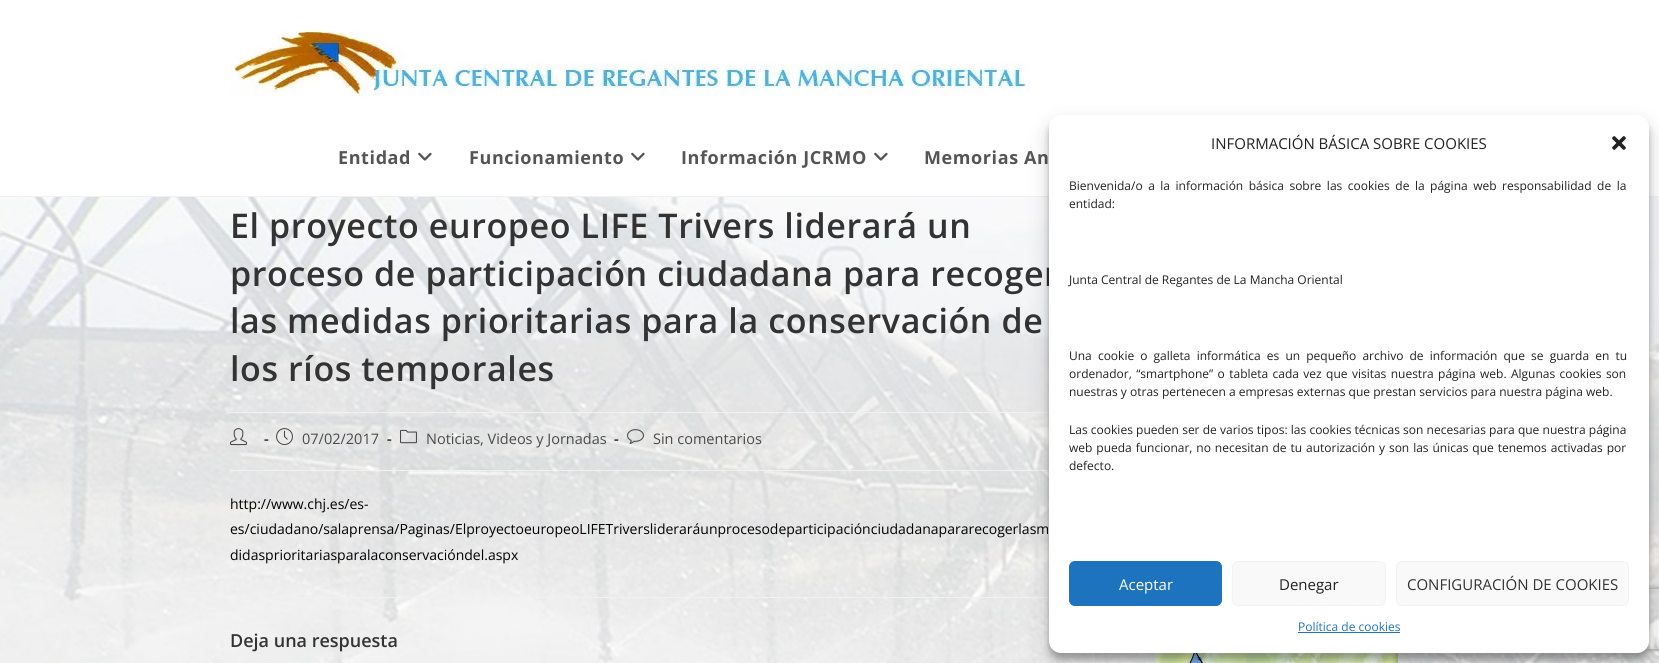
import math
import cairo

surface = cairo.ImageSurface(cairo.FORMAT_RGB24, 1659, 663)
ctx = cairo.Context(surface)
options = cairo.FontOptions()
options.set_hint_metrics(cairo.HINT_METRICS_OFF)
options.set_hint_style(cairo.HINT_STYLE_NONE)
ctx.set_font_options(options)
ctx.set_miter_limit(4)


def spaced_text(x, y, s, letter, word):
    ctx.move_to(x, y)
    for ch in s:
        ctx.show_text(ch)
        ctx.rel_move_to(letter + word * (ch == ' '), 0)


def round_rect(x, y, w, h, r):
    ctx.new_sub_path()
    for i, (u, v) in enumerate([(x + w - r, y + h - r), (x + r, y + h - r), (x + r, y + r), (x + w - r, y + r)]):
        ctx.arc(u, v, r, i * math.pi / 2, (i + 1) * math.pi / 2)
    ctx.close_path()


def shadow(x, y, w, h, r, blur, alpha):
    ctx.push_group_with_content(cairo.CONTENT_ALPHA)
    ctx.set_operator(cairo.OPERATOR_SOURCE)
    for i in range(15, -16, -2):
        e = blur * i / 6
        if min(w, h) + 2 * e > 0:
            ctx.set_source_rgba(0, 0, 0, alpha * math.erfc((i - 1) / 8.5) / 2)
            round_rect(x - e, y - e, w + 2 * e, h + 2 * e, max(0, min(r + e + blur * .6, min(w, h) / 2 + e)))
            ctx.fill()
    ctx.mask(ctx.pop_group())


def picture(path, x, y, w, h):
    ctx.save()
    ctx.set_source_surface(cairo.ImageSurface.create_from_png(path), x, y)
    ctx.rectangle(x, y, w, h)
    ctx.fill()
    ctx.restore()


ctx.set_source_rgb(1, 1, 1)
ctx.paint()
picture("img1.png", 0, 197, 1659, 466)
ctx.set_source_rgb(0.945, 0.945, 0.945)
ctx.rectangle(0, 196, 1659, 1)
ctx.fill()
picture("img2.png", 230, 29, 800, 68)
ctx.select_font_face("Open Sans", cairo.FONT_SLANT_NORMAL, cairo.FONT_WEIGHT_BOLD)
ctx.set_font_size(18)
ctx.set_source_rgb(0.333, 0.333, 0.333)
spaced_text(338, 164, "Entidad", 0.6, 0)
picture("img3.png", 418, 152, 14, 9)
spaced_text(469, 164, "Funcionamiento", 0.6, 0)
picture("img3.png", 631, 152, 14, 9)
spaced_text(681, 164, "Información JCRMO", 0.6, 0)
picture("img3.png", 874, 152, 14, 9)
spaced_text(924, 164, "Memorias An", 0.6, 0)
ctx.set_source_rgb(0.945, 0.945, 0.945)
ctx.rectangle(1093, 653, 1, 10)
ctx.fill()
ctx.rectangle(230, 412, 819, 1)
ctx.fill()
ctx.select_font_face("Open Sans SemiBold")
ctx.set_font_size(34)
ctx.set_source_rgb(0.2, 0.2, 0.2)
spaced_text(230, 238, "El proyecto europeo LIFE Trivers liderará un", 0.6, 0)
spaced_text(230, 286, "proceso de participación ciudadana para recoger", 0.6, 0)
spaced_text(230, 333, "las medidas prioritarias para la conservación de", 0.6, 0)
spaced_text(230, 381, "los ríos temporales", 0.6, 0)
ctx.set_source_rgb(0.945, 0.945, 0.945)
ctx.rectangle(230, 470, 819, 1)
ctx.fill()
picture("img4.png", 230, 428, 17, 18)
ctx.select_font_face("Open Sans", cairo.FONT_SLANT_NORMAL, cairo.FONT_WEIGHT_BOLD)
ctx.set_font_size(14.5)
ctx.set_source_rgb(0.29, 0.29, 0.29)
ctx.move_to(264, 444)
ctx.show_text("-")
picture("img5.png", 276, 428, 17, 18)
ctx.select_font_face("Open Sans")
ctx.move_to(302, 444)
ctx.show_text("07/02/2017")
ctx.select_font_face("Open Sans", cairo.FONT_SLANT_NORMAL, cairo.FONT_WEIGHT_BOLD)
ctx.move_to(387, 444)
ctx.show_text("-")
picture("img6.png", 400, 429, 17, 15)
ctx.select_font_face("Open Sans")
ctx.move_to(426, 444)
ctx.show_text("Noticias, Videos y Jornadas")
ctx.select_font_face("Open Sans", cairo.FONT_SLANT_NORMAL, cairo.FONT_WEIGHT_BOLD)
ctx.move_to(614, 444)
ctx.show_text("-")
picture("img7.png", 627, 429, 17, 15)
ctx.select_font_face("Open Sans")
ctx.move_to(653, 444)
ctx.show_text("Sin comentarios")
ctx.set_font_size(14)
ctx.set_source_rgb(0, 0, 0)
ctx.move_to(230, 509)
ctx.show_text("http://www.chj.es/es-")
ctx.move_to(230, 534)
ctx.show_text("es/ciudadano/salaprensa/Paginas/ElproyectoeuropeoLIFETriverslideraráunprocesodeparticipaciónciudadanapararecogerlasm")
ctx.move_to(230, 560)
ctx.show_text("didasprioritariasparalaconservacióndel.aspx")
ctx.set_source_rgb(0.945, 0.945, 0.945)
ctx.rectangle(255, 597, 794, 1)
ctx.fill()
ctx.select_font_face("Open Sans SemiBold")
ctx.set_font_size(18)
ctx.set_source_rgb(0.2, 0.2, 0.2)
ctx.move_to(230, 647)
ctx.show_text("Deja una respuesta")
picture("img8.png", 1155, 653, 243, 10)
ctx.set_source_rgb(0, 0, 0)
shadow(1049, 121, 600, 538, 12, 3, 0.23)
shadow(1049, 125, 600, 538, 12, 10, 0.19)
ctx.save()
ctx.set_fill_rule(cairo.FILL_RULE_EVEN_ODD)
ctx.new_path()
ctx.move_to(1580, 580)
ctx.line_to(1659, 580)
ctx.line_to(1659, 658)
ctx.line_to(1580, 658)
ctx.close_path()
ctx.move_to(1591, 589)
ctx.line_to(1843, 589)
ctx.curve_to(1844, 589, 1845, 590, 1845, 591)
ctx.line_to(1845, 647)
ctx.curve_to(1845, 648, 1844, 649, 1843, 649)
ctx.line_to(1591, 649)
ctx.curve_to(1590, 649, 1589, 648, 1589, 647)
ctx.line_to(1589, 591)
ctx.curve_to(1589, 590, 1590, 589, 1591, 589)
ctx.close_path()
ctx.clip()
ctx.set_source_rgb(0.502, 0.502, 0.502)
shadow(1589, 589, 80, 60, 2, 2.5, 1)
ctx.restore()
ctx.set_source_rgb(1, 1, 1)
round_rect(1049, 115, 600, 538, 12)
ctx.fill()
ctx.select_font_face("Open Sans")
ctx.set_font_size(15)
ctx.set_source_rgb(0.133, 0.133, 0.133)
ctx.move_to(1211, 149)
ctx.show_text("INFORMACIÓN BÁSICA SOBRE COOKIES")
picture("img9.png", 1612, 136, 14, 14)
ctx.set_font_size(12)
spaced_text(1069, 190, "Bienvenida/o a la información básica sobre las cookies de la página web responsabilidad de la", 0, 2.4)
ctx.move_to(1069, 208)
ctx.show_text("entidad:")
ctx.move_to(1069, 284)
ctx.show_text("Junta Central de Regantes de La Mancha Oriental")
spaced_text(1069, 360, "Una cookie o galleta informática es un pequeño archivo de información que se guarda en tu", 0, 3)
spaced_text(1069, 378, "ordenador, “smartphone” o tableta cada vez que visitas nuestra página web. Algunas cookies son", 0, 1.25)
ctx.move_to(1069, 396)
ctx.show_text("nuestras y otras pertenecen a empresas externas que prestan servicios para nuestra página web.")
spaced_text(1069, 434, "Las cookies pueden ser de varios tipos: las cookies técnicas son necesarias para que nuestra página", 0, 0.1)
spaced_text(1069, 452, "web pueda funcionar, no necesitan de tu autorización y son las únicas que tenemos activadas por", 0, 0.8)
ctx.move_to(1069, 470)
ctx.show_text("defecto.")
ctx.set_source_rgb(0.118, 0.451, 0.745)
round_rect(1069.5, 561.5, 152, 44, 5.5)
ctx.fill_preserve()
ctx.set_line_width(1)
ctx.stroke()
ctx.set_font_size(15)
ctx.set_source_rgb(1, 1, 1)
ctx.move_to(1119, 590)
ctx.show_text("Aceptar")
ctx.set_source_rgb(0.976, 0.976, 0.976)
round_rect(1232.5, 561.5, 153, 44, 5.5)
ctx.fill_preserve()
ctx.set_source_rgb(0.949, 0.949, 0.949)
ctx.stroke()
ctx.set_source_rgb(0.133, 0.133, 0.133)
ctx.move_to(1279, 590)
ctx.show_text("Denegar")
ctx.set_source_rgb(0.976, 0.976, 0.976)
round_rect(1396.5, 561.5, 232, 44, 5.5)
ctx.fill_preserve()
ctx.set_source_rgb(0.949, 0.949, 0.949)
ctx.stroke()
ctx.set_source_rgb(0.2, 0.2, 0.2)
ctx.move_to(1407, 590)
ctx.show_text("CONFIGURACIÓN DE COOKIES")
ctx.set_font_size(12)
ctx.set_source_rgb(0.118, 0.451, 0.745)
ctx.move_to(1298, 631)
ctx.show_text("Política de cookies")
ctx.rectangle(1298, 632, 102, 1)
ctx.fill()
surface.write_to_png("page.png")
